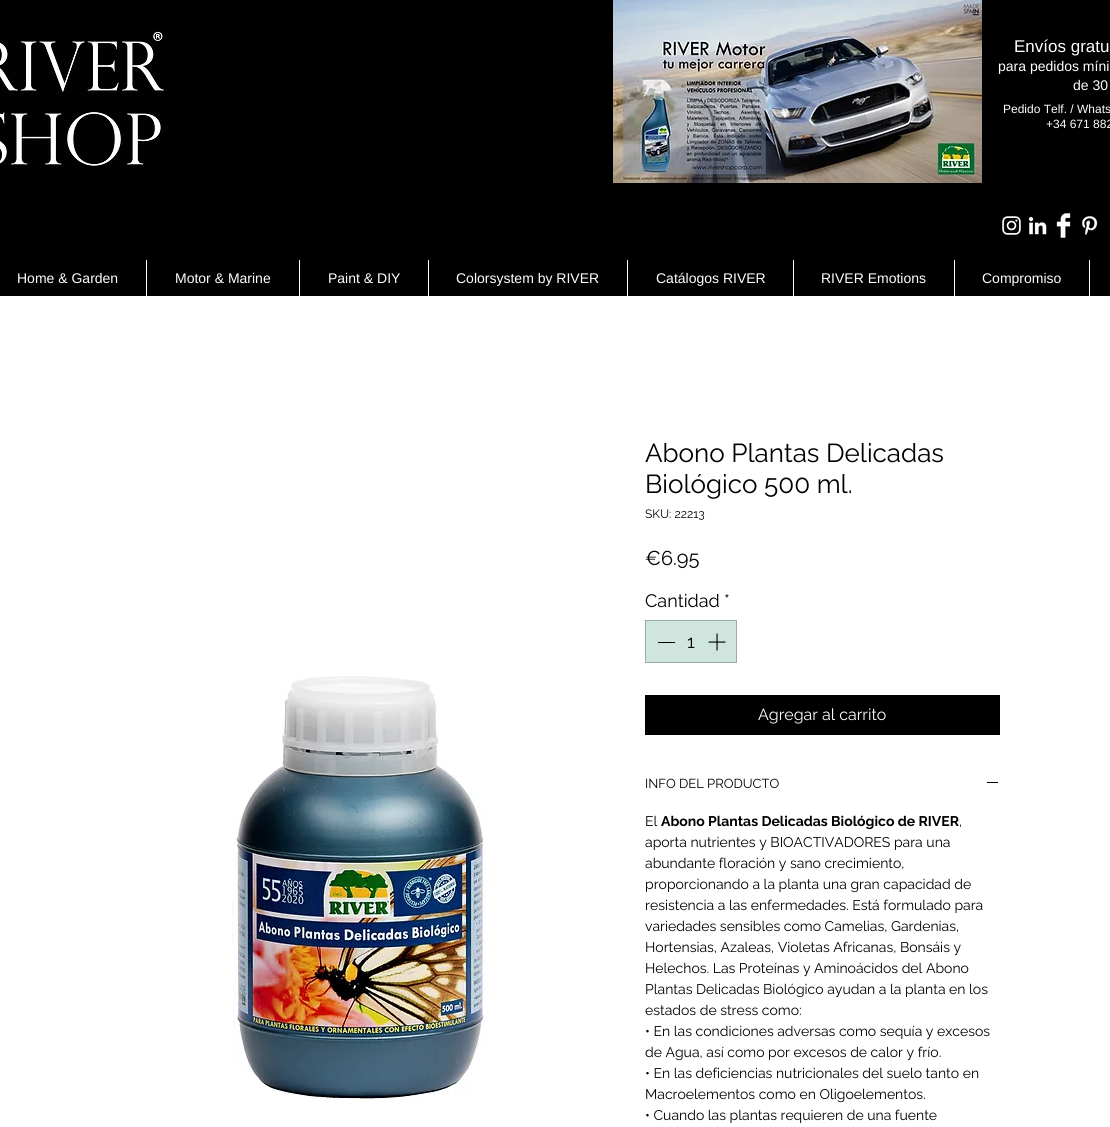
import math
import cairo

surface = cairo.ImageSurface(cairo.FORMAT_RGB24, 1110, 1127)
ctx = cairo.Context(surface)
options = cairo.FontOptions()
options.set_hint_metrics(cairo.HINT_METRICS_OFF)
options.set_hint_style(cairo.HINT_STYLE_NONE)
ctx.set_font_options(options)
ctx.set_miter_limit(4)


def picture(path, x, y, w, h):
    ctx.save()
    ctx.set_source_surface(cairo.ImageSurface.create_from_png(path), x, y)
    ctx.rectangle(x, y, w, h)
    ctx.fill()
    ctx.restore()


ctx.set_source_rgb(1, 1, 1)
ctx.paint()
ctx.set_source_rgb(0, 0, 0)
ctx.rectangle(0, 0, 1110, 296)
ctx.fill()
picture("img1.png", 0, 31, 164, 135)
picture("img2.png", 613, 0, 369, 183)
ctx.select_font_face("Liberation Sans")
ctx.set_font_size(17)
ctx.set_source_rgb(1, 1, 1)
ctx.move_to(1014, 52)
ctx.show_text("Envíos gratu")
ctx.set_font_size(14)
ctx.move_to(998, 71)
ctx.show_text("para pedidos míni")
ctx.move_to(1073, 90)
ctx.show_text("de 30")
ctx.set_font_size(12)
ctx.move_to(1003, 113)
ctx.show_text("Pedido Telf. / Whats")
ctx.move_to(1046, 128)
ctx.show_text("+34 671 882")
picture("img3.png", 1002, 216, 19, 19)
picture("img4.png", 1028, 216, 19, 19)
picture("img5.png", 1056, 213, 15, 25)
picture("img6.png", 1082, 216, 16, 19)
ctx.set_font_size(14)
ctx.move_to(17, 283)
ctx.show_text("Home & Garden")
ctx.rectangle(146, 260, 1, 36)
ctx.fill()
ctx.move_to(175, 283)
ctx.show_text("Motor & Marine")
ctx.rectangle(299, 260, 1, 36)
ctx.fill()
ctx.move_to(328, 283)
ctx.show_text("Paint & DIY")
ctx.rectangle(428, 260, 1, 36)
ctx.fill()
ctx.move_to(456, 283)
ctx.show_text("Colorsystem by RIVER")
ctx.rectangle(627, 260, 1, 36)
ctx.fill()
ctx.move_to(656, 283)
ctx.show_text("Catálogos RIVER")
ctx.rectangle(793, 260, 1, 36)
ctx.fill()
ctx.move_to(821, 283)
ctx.show_text("RIVER Emotions")
ctx.rectangle(954, 260, 1, 36)
ctx.fill()
ctx.move_to(982, 283)
ctx.show_text("Compromiso")
ctx.rectangle(1089, 260, 1, 36)
ctx.fill()
picture("img7.png", 231, 676, 255, 425)
ctx.select_font_face("Raleway")
ctx.set_font_size(26)
ctx.set_source_rgb(0, 0, 0)
ctx.move_to(645, 462)
ctx.show_text("Abono Plantas Delicadas")
ctx.move_to(645, 493)
ctx.show_text("Biológico 500 ml.")
ctx.set_font_size(12)
ctx.move_to(645, 518)
ctx.show_text("SKU: 22213")
ctx.set_font_size(20)
ctx.move_to(645, 565)
ctx.show_text("€6.95")
ctx.set_font_size(18)
ctx.move_to(645, 607)
ctx.show_text("Cantidad")
ctx.move_to(724, 607)
ctx.show_text("*")
ctx.set_source_rgb(0.816, 0.898, 0.871)
ctx.rectangle(645.5, 620.5, 91, 42)
ctx.fill_preserve()
ctx.set_source_rgb(0.596, 0.671, 0.678)
ctx.set_line_width(1)
ctx.stroke()
ctx.set_source_rgb(0, 0, 0)
ctx.rectangle(658, 642, 17, 1)
ctx.fill()
ctx.move_to(687, 648)
ctx.show_text("1")
picture("img8.png", 708, 633, 18, 18)
ctx.rectangle(645, 695, 355, 40)
ctx.fill()
ctx.set_font_size(16)
ctx.set_source_rgb(1, 1, 1)
ctx.move_to(758, 720)
ctx.show_text("Agregar al carrito")
ctx.set_font_size(13)
ctx.set_source_rgb(0, 0, 0)
ctx.move_to(645, 788)
ctx.show_text("INFO DEL PRODUCTO")
ctx.rectangle(987, 782, 11, 1)
ctx.fill()
ctx.set_font_size(14)
ctx.move_to(645, 826)
ctx.show_text("El")
ctx.select_font_face("Raleway", cairo.FONT_SLANT_NORMAL, cairo.FONT_WEIGHT_BOLD)
ctx.move_to(661, 826)
ctx.show_text("Abono Plantas Delicadas Biológico de RIVER")
ctx.select_font_face("Raleway")
ctx.move_to(959, 826)
ctx.show_text(",")
ctx.move_to(645, 847)
ctx.show_text("aporta nutrientes y BIOACTIVADORES para una")
ctx.move_to(645, 868)
ctx.show_text("abundante floración y sano crecimiento,")
ctx.move_to(645, 889)
ctx.show_text("proporcionando a la planta una gran capacidad de")
ctx.move_to(645, 910)
ctx.show_text("resistencia a las enfermedades. Está formulado para")
ctx.move_to(645, 931)
ctx.show_text("variedades sensibles como Camelias, Gardenias,")
ctx.move_to(645, 952)
ctx.show_text("Hortensias, Azaleas, Violetas Africanas, Bonsáis y")
ctx.move_to(645, 973)
ctx.show_text("Helechos. Las Proteínas y Aminoácidos del Abono")
ctx.move_to(645, 994)
ctx.show_text("Plantas Delicadas Biológico ayudan a la planta en los")
ctx.move_to(645, 1015)
ctx.show_text("estados de stress como:")
ctx.move_to(645, 1036)
ctx.show_text("• En las condiciones adversas como sequía y excesos")
ctx.move_to(645, 1057)
ctx.show_text("de Agua, así como por excesos de calor y frío.")
ctx.move_to(645, 1078)
ctx.show_text("• En las deficiencias nutricionales del suelo tanto en")
ctx.move_to(645, 1099)
ctx.show_text("Macroelementos como en Oligoelementos.")
ctx.move_to(645, 1120)
ctx.show_text("• Cuando las plantas requieren de una fuente")
surface.write_to_png("page.png")
